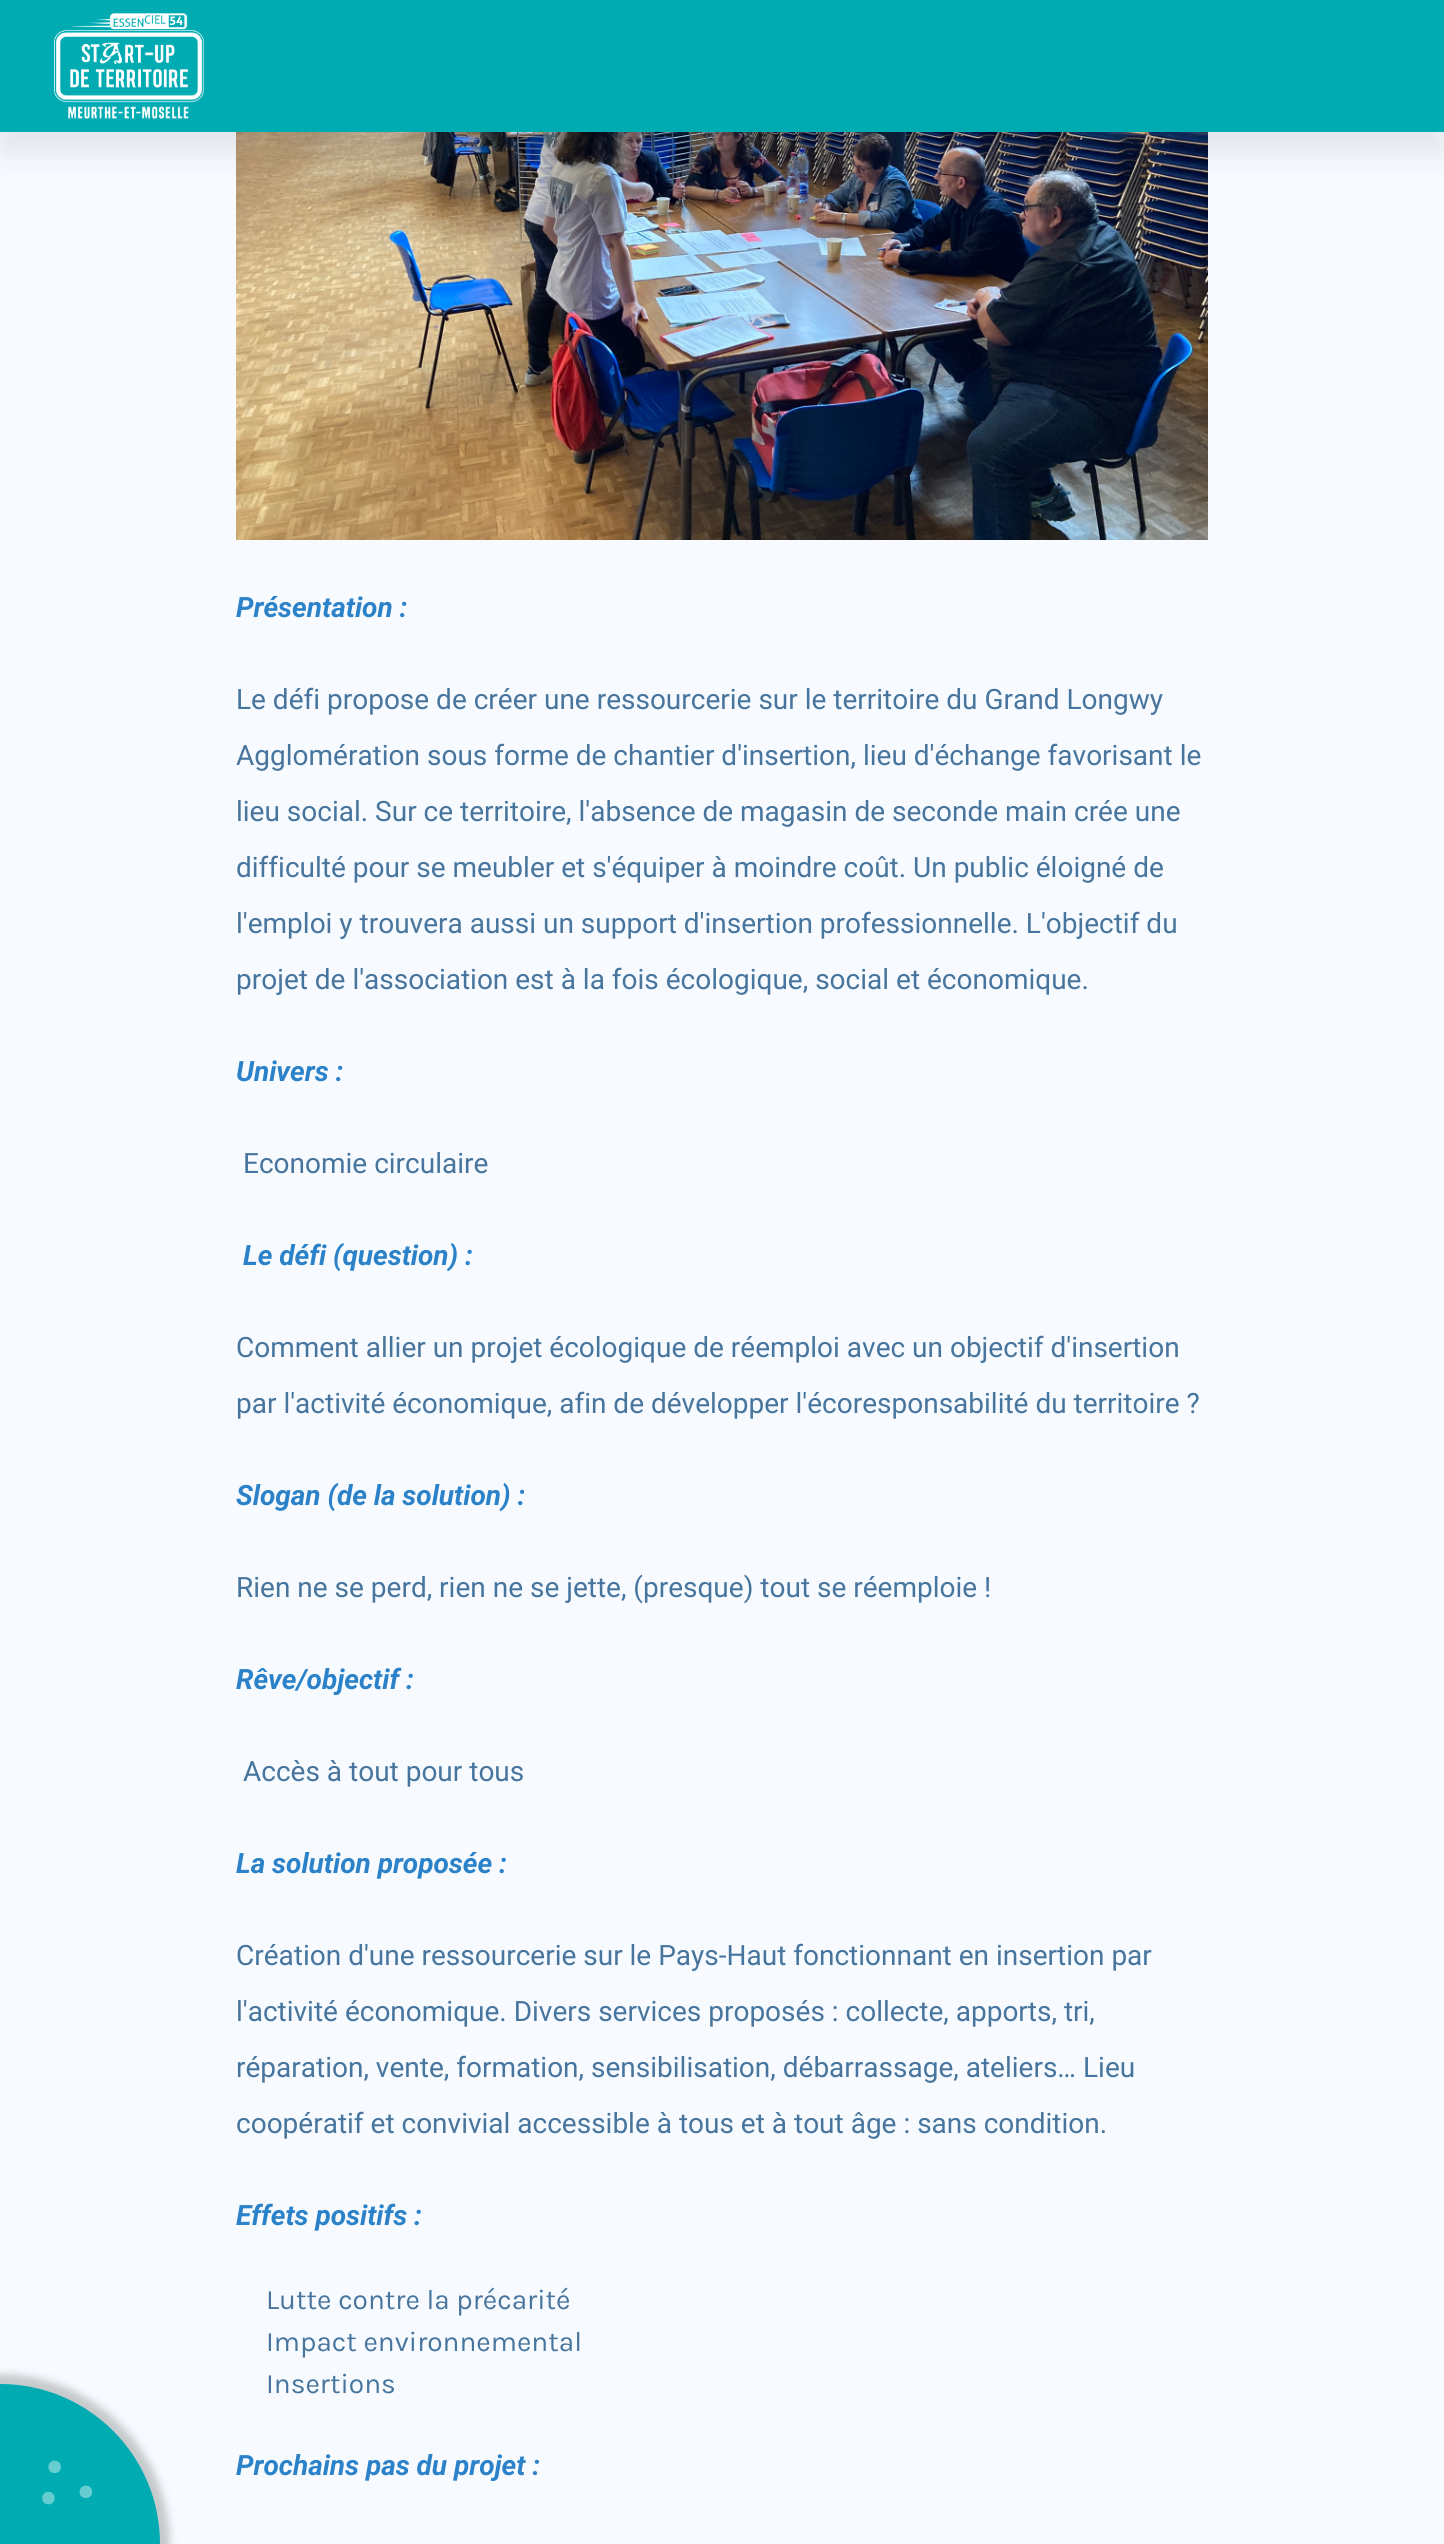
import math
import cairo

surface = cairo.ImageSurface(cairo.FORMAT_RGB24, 1444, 2544)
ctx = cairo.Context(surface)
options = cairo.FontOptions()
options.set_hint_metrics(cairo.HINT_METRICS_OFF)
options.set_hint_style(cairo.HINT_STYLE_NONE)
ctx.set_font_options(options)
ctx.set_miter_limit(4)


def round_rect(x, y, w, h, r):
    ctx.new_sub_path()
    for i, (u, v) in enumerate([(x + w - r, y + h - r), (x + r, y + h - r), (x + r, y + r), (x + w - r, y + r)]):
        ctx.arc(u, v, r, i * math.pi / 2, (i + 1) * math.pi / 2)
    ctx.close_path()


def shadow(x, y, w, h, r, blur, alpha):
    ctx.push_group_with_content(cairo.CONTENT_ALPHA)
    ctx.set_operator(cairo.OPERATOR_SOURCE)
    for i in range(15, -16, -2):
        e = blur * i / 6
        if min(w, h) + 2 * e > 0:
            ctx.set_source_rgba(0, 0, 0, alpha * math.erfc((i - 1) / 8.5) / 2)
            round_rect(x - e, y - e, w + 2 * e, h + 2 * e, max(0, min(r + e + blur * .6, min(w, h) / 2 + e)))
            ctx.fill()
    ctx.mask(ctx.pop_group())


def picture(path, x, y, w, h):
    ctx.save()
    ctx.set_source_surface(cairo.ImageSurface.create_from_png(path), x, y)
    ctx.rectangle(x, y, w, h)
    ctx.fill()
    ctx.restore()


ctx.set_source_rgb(0.965, 0.984, 1)
ctx.paint()
picture("img2.png", 236, 132, 972, 408)
ctx.set_source_rgb(0.098, 0.098, 0.098)
shadow(0, 20, 1444, 132, 0, 15, 0.1)
ctx.set_source_rgb(0, 0.671, 0.698)
ctx.rectangle(0, 0, 1444, 132)
ctx.fill()
picture("img1.png", 54, 13, 150, 106)
ctx.select_font_face("Roboto", cairo.FONT_SLANT_ITALIC, cairo.FONT_WEIGHT_BOLD)
ctx.set_font_size(28)
ctx.set_source_rgb(0.173, 0.51, 0.788)
ctx.move_to(236, 617)
ctx.show_text("Présentation :")
ctx.select_font_face("Roboto")
ctx.set_source_rgb(0.278, 0.459, 0.616)
ctx.move_to(236, 709)
ctx.show_text("Le défi propose de créer une ressourcerie sur le territoire du Grand Longwy")
ctx.move_to(236, 765)
ctx.show_text("Agglomération sous forme de chantier d'insertion, lieu d'échange favorisant le")
ctx.move_to(236, 821)
ctx.show_text("lieu social. Sur ce territoire, l'absence de magasin de seconde main crée une")
ctx.move_to(236, 877)
ctx.show_text("difficulté pour se meubler et s'équiper à moindre coût. Un public éloigné de")
ctx.move_to(236, 933)
ctx.show_text("l'emploi y trouvera aussi un support d'insertion professionnelle. L'objectif du")
ctx.move_to(236, 989)
ctx.show_text("projet de l'association est à la fois écologique, social et économique.")
ctx.select_font_face("Roboto", cairo.FONT_SLANT_ITALIC, cairo.FONT_WEIGHT_BOLD)
ctx.set_source_rgb(0.173, 0.51, 0.788)
ctx.move_to(236, 1081)
ctx.show_text("Univers :")
ctx.select_font_face("Roboto")
ctx.set_source_rgb(0.278, 0.459, 0.616)
ctx.move_to(243, 1173)
ctx.show_text("Economie circulaire")
ctx.select_font_face("Roboto", cairo.FONT_SLANT_ITALIC, cairo.FONT_WEIGHT_BOLD)
ctx.set_source_rgb(0.173, 0.51, 0.788)
ctx.move_to(243, 1265)
ctx.show_text("Le défi (question) :")
ctx.select_font_face("Roboto")
ctx.set_source_rgb(0.278, 0.459, 0.616)
ctx.move_to(236, 1357)
ctx.show_text("Comment allier un projet écologique de réemploi avec un objectif d'insertion")
ctx.move_to(236, 1413)
ctx.show_text("par l'activité économique, afin de développer l'écoresponsabilité du territoire ?")
ctx.select_font_face("Roboto", cairo.FONT_SLANT_ITALIC, cairo.FONT_WEIGHT_BOLD)
ctx.set_source_rgb(0.173, 0.51, 0.788)
ctx.move_to(236, 1505)
ctx.show_text("Slogan (de la solution) :")
ctx.select_font_face("Roboto")
ctx.set_source_rgb(0.278, 0.459, 0.616)
ctx.move_to(236, 1597)
ctx.show_text("Rien ne se perd, rien ne se jette, (presque) tout se réemploie !")
ctx.select_font_face("Roboto", cairo.FONT_SLANT_ITALIC, cairo.FONT_WEIGHT_BOLD)
ctx.set_source_rgb(0.173, 0.51, 0.788)
ctx.move_to(236, 1689)
ctx.show_text("Rêve/objectif :")
ctx.select_font_face("Roboto")
ctx.set_source_rgb(0.278, 0.459, 0.616)
ctx.move_to(243, 1781)
ctx.show_text("Accès à tout pour tous")
ctx.select_font_face("Roboto", cairo.FONT_SLANT_ITALIC, cairo.FONT_WEIGHT_BOLD)
ctx.set_source_rgb(0.173, 0.51, 0.788)
ctx.move_to(236, 1873)
ctx.show_text("La solution proposée :")
ctx.select_font_face("Roboto")
ctx.set_source_rgb(0.278, 0.459, 0.616)
ctx.move_to(236, 1965)
ctx.show_text("Création d'une ressourcerie sur le Pays-Haut fonctionnant en insertion par")
ctx.move_to(236, 2021)
ctx.show_text("l'activité économique. Divers services proposés : collecte, apports, tri,")
ctx.move_to(236, 2077)
ctx.show_text("réparation, vente, formation, sensibilisation, débarrassage, ateliers… Lieu")
ctx.move_to(236, 2133)
ctx.show_text("coopératif et convivial accessible à tous et à tout âge : sans condition.")
ctx.select_font_face("Roboto", cairo.FONT_SLANT_ITALIC, cairo.FONT_WEIGHT_BOLD)
ctx.set_source_rgb(0.173, 0.51, 0.788)
ctx.move_to(236, 2225)
ctx.show_text("Effets positifs :")
ctx.select_font_face("Karla")
ctx.set_source_rgb(0.278, 0.459, 0.616)
ctx.move_to(266, 2309)
ctx.show_text("Lutte contre la précarité")
ctx.move_to(266, 2351)
ctx.show_text("Impact environnemental")
ctx.move_to(266, 2393)
ctx.show_text("Insertions")
ctx.select_font_face("Roboto", cairo.FONT_SLANT_ITALIC, cairo.FONT_WEIGHT_BOLD)
ctx.set_source_rgb(0.173, 0.51, 0.788)
ctx.move_to(236, 2475)
ctx.show_text("Prochains pas du projet :")
ctx.set_source_rgb(0, 0, 0)
shadow(-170, 2374, 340, 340, 170, 4, 0.2)
ctx.set_source_rgb(0, 0.671, 0.698)
ctx.arc(0, 2544, 160, 0, 2 * math.pi)
ctx.fill()
picture("img3.png", 42, 2460, 51, 45)
surface.write_to_png("page.png")
